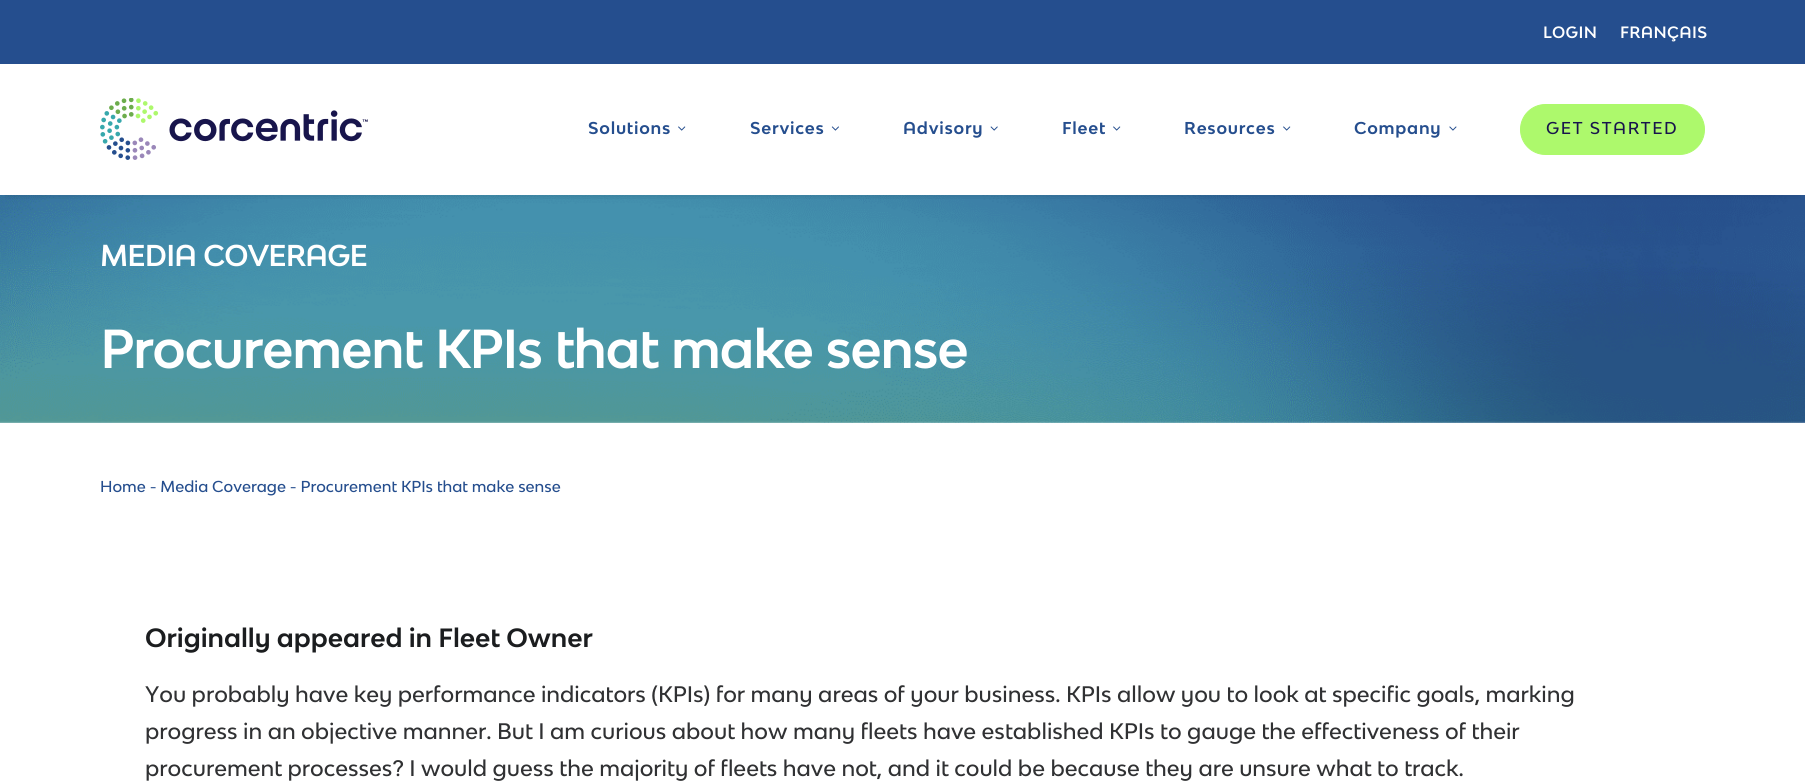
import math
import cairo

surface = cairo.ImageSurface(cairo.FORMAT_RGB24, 1805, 783)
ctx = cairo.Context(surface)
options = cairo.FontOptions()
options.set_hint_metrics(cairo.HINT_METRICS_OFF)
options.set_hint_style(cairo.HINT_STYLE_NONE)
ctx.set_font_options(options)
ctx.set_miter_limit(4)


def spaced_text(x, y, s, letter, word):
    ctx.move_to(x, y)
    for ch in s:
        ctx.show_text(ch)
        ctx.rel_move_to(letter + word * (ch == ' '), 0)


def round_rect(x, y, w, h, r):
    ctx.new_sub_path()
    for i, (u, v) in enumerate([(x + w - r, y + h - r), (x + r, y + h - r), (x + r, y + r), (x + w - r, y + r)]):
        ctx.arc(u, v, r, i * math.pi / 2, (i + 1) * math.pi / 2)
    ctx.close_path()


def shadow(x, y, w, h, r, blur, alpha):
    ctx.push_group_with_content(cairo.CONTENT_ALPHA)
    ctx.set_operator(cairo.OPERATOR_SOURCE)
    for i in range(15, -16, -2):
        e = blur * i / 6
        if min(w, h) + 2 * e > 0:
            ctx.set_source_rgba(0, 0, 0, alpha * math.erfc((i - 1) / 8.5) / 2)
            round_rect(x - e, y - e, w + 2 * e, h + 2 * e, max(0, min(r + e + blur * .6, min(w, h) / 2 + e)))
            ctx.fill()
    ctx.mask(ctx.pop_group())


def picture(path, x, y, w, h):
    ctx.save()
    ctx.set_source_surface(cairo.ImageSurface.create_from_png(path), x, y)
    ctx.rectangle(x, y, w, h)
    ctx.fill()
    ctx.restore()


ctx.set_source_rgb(1, 1, 1)
ctx.paint()
picture("img6.png", 0, 195, 1805, 228)
ctx.save()
ctx.rectangle(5, 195, 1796, 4)
ctx.clip()
ctx.set_source_rgb(0, 0, 0)
shadow(8, 81, 1790, 107, 0, 6, 0.6)
ctx.restore()
ctx.set_source_rgb(0.145, 0.306, 0.557)
ctx.rectangle(0, 0, 1805, 64)
ctx.fill()
ctx.select_font_face("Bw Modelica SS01", cairo.FONT_SLANT_NORMAL, cairo.FONT_WEIGHT_BOLD)
ctx.set_font_size(15)
ctx.set_source_rgb(1, 1, 1)
spaced_text(1543, 38, "LOGIN", 0.75, 0)
spaced_text(1620, 38, "FRANÇAIS", 0.75, 0)
picture("img1.png", 100, 98, 268, 62)
ctx.select_font_face("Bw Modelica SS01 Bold", cairo.FONT_SLANT_NORMAL, cairo.FONT_WEIGHT_BOLD)
ctx.set_font_size(16.25)
ctx.set_source_rgb(0.145, 0.306, 0.557)
spaced_text(588, 134, "Solutions", 0.75, 0)
picture("img2.png", 678, 126, 8, 5)
spaced_text(750, 134, "Services", 0.75, 0)
picture("img3.png", 831, 126, 8, 5)
spaced_text(903, 134, "Advisory", 0.75, 0)
picture("img4.png", 990, 126, 8, 5)
spaced_text(1062, 134, "Fleet", 0.75, 0)
picture("img2.png", 1113, 126, 8, 5)
spaced_text(1184, 134, "Resources", 0.75, 0)
picture("img2.png", 1283, 126, 8, 5)
spaced_text(1354, 134, "Company", 0.75, 0)
picture("img5.png", 1449, 126, 8, 5)
ctx.set_source_rgb(0.678, 0.973, 0.424)
round_rect(1520.5, 104.5, 184, 50, 25)
ctx.fill_preserve()
ctx.set_line_width(1)
ctx.stroke()
ctx.select_font_face("Bw Modelica SS01 Medium")
ctx.set_source_rgb(0.094, 0.082, 0.298)
spaced_text(1546, 134, "GET STARTED", 1.6, 0)
ctx.select_font_face("Bw Modelica SS01", cairo.FONT_SLANT_NORMAL, cairo.FONT_WEIGHT_BOLD)
ctx.set_font_size(27.5)
ctx.set_source_rgb(1, 1, 1)
ctx.move_to(100, 266)
ctx.show_text("MEDIA COVERAGE")
ctx.set_font_size(50)
ctx.move_to(100, 368)
ctx.show_text("Procurement KPIs that make sense")
ctx.select_font_face("Bw Modelica SS01 Medium")
ctx.set_font_size(15)
ctx.set_source_rgb(0.145, 0.306, 0.557)
ctx.move_to(100, 492)
ctx.show_text("Home - Media Coverage - Procurement KPIs that make sense")
ctx.select_font_face("Bw Modelica SS01 Bold", cairo.FONT_SLANT_NORMAL, cairo.FONT_WEIGHT_BOLD)
ctx.set_font_size(25)
ctx.set_source_rgb(0.106, 0.114, 0.122)
ctx.move_to(145, 647)
ctx.show_text("Originally appeared in Fleet Owner")
ctx.select_font_face("Bw Modelica SS01 Medium")
ctx.set_font_size(21.25)
ctx.set_source_rgb(0.188, 0.192, 0.2)
ctx.move_to(145, 702)
ctx.show_text("You probably have key performance indicators (KPIs) for many areas of your business. KPIs allow you to look at specific goals, marking")
ctx.move_to(145, 739)
ctx.show_text("progress in an objective manner. But I am curious about how many fleets have established KPIs to gauge the effectiveness of their")
ctx.move_to(145, 776)
ctx.show_text("procurement processes? I would guess the majority of fleets have not, and it could be because they are unsure what to track.")
surface.write_to_png("page.png")
